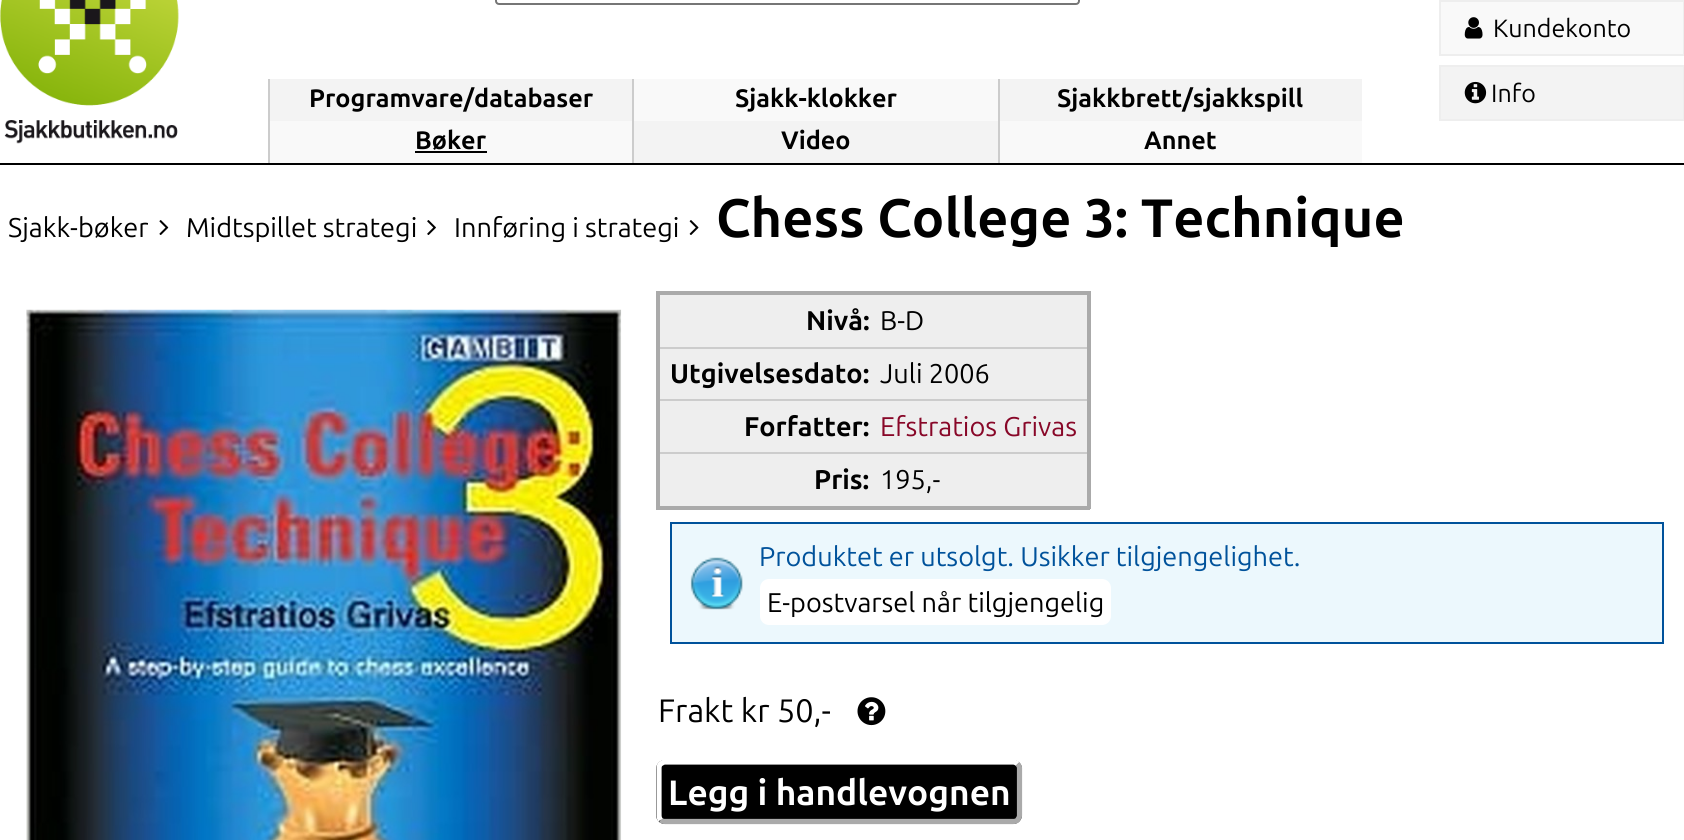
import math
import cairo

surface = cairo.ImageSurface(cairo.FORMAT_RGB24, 1684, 840)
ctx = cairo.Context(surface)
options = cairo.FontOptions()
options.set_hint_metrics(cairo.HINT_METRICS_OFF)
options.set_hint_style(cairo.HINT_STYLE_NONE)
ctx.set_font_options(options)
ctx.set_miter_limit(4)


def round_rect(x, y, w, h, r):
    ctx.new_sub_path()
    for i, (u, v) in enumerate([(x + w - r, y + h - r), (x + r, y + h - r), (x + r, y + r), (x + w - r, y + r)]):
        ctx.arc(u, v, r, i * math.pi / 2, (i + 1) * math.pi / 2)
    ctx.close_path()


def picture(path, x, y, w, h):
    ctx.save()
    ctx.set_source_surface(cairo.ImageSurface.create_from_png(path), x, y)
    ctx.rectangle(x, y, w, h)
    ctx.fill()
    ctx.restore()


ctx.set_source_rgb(1, 1, 1)
ctx.paint()
ctx.set_source_rgb(0, 0, 0)
ctx.rectangle(0, 163, 1684, 2)
ctx.fill()
picture("img1.png", 0, 0, 179, 144)
ctx.set_source_rgb(0.973, 0.973, 0.973)
ctx.rectangle(1440, 1, 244, 54)
ctx.fill_preserve()
ctx.set_source_rgb(0.933, 0.933, 0.933)
ctx.stroke()
picture("img2.png", 1464, 17, 19, 22)
ctx.select_font_face("Ubuntu")
ctx.set_font_size(25)
ctx.set_source_rgb(0, 0, 0)
ctx.move_to(1493, 37)
ctx.show_text("Kundekonto")
ctx.set_source_rgb(0.953, 0.953, 0.953)
ctx.rectangle(1440, 66, 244, 54)
ctx.fill_preserve()
ctx.set_source_rgb(0.933, 0.933, 0.933)
ctx.stroke()
picture("img3.png", 1464, 81, 23, 23)
ctx.set_source_rgb(0, 0, 0)
ctx.move_to(1491, 102)
ctx.show_text("Info")
round_rect(496, -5, 583, 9, 3)
ctx.set_source_rgb(0.463, 0.463, 0.463)
ctx.stroke()
ctx.set_source_rgb(0.953, 0.953, 0.953)
ctx.rectangle(270, 79, 362, 42)
ctx.fill()
ctx.set_source_rgb(0.8, 0.8, 0.8)
ctx.rectangle(268, 79, 2, 84)
ctx.fill()
ctx.select_font_face("Ubuntu", cairo.FONT_SLANT_NORMAL, cairo.FONT_WEIGHT_BOLD)
ctx.set_font_size(25.25)
ctx.set_source_rgb(0, 0, 0)
ctx.move_to(309, 107)
ctx.show_text("Programvare/databaser")
ctx.set_source_rgb(0.973, 0.973, 0.973)
ctx.rectangle(634, 79, 364, 42)
ctx.fill()
ctx.set_source_rgb(0.8, 0.8, 0.8)
ctx.rectangle(632, 79, 2, 84)
ctx.fill()
ctx.set_source_rgb(0, 0, 0)
ctx.move_to(735, 107)
ctx.show_text("Sjakk-klokker")
ctx.set_source_rgb(0.953, 0.953, 0.953)
ctx.rectangle(1000, 79, 362, 42)
ctx.fill()
ctx.set_source_rgb(0.8, 0.8, 0.8)
ctx.rectangle(998, 79, 2, 84)
ctx.fill()
ctx.set_source_rgb(0, 0, 0)
ctx.move_to(1057, 107)
ctx.show_text("Sjakkbrett/sjakkspill")
ctx.set_source_rgb(0.973, 0.973, 0.973)
ctx.rectangle(270, 121, 362, 42)
ctx.fill()
ctx.set_source_rgb(0, 0, 0)
ctx.move_to(415, 149)
ctx.show_text("Bøker")
ctx.rectangle(415, 151, 72, 2)
ctx.fill()
ctx.set_source_rgb(0.953, 0.953, 0.953)
ctx.rectangle(634, 121, 364, 42)
ctx.fill()
ctx.set_source_rgb(0, 0, 0)
ctx.move_to(781, 149)
ctx.show_text("Video")
ctx.set_source_rgb(0.973, 0.973, 0.973)
ctx.rectangle(1000, 121, 362, 42)
ctx.fill()
ctx.set_source_rgb(0, 0, 0)
ctx.move_to(1144, 149)
ctx.show_text("Annet")
ctx.select_font_face("Ubuntu")
ctx.set_font_size(27.1)
ctx.move_to(8, 237)
ctx.show_text("Sjakk-bøker")
picture("img4.png", 159, 220, 10, 15)
ctx.move_to(186, 237)
ctx.show_text("Midtspillet strategi")
picture("img5.png", 427, 220, 9, 15)
ctx.move_to(454, 237)
ctx.show_text("Innføring i strategi")
picture("img6.png", 689, 220, 10, 15)
ctx.select_font_face("Ubuntu", cairo.FONT_SLANT_NORMAL, cairo.FONT_WEIGHT_BOLD)
ctx.set_font_size(54.1)
ctx.move_to(716, 237)
ctx.show_text("Chess College 3: Technique")
picture("img7.png", 26, 309, 596, 531)
ctx.set_source_rgb(0.933, 0.933, 0.933)
ctx.rectangle(660, 295, 427, 211)
ctx.fill()
ctx.set_source_rgb(0.667, 0.667, 0.667)
ctx.rectangle(656, 291, 434, 4)
ctx.fill()
ctx.set_source_rgb(0.8, 0.8, 0.8)
ctx.rectangle(656, 347, 434, 2)
ctx.fill()
ctx.rectangle(656, 399, 434, 2)
ctx.fill()
ctx.rectangle(656, 452, 434, 2)
ctx.fill()
ctx.set_source_rgb(0.667, 0.667, 0.667)
ctx.rectangle(1087, 291, 4, 218)
ctx.fill()
ctx.rectangle(656, 506, 434, 4)
ctx.fill()
ctx.rectangle(656, 291, 4, 218)
ctx.fill()
ctx.set_font_size(27.1)
ctx.set_source_rgb(0, 0, 0)
ctx.move_to(806, 330)
ctx.show_text("Nivå:")
ctx.select_font_face("Ubuntu")
ctx.move_to(880, 330)
ctx.show_text("B-D")
ctx.select_font_face("Ubuntu", cairo.FONT_SLANT_NORMAL, cairo.FONT_WEIGHT_BOLD)
ctx.move_to(670, 383)
ctx.show_text("Utgivelsesdato:")
ctx.select_font_face("Ubuntu")
ctx.move_to(880, 383)
ctx.show_text("Juli 2006")
ctx.select_font_face("Ubuntu", cairo.FONT_SLANT_NORMAL, cairo.FONT_WEIGHT_BOLD)
ctx.move_to(744, 436)
ctx.show_text("Forfatter:")
ctx.select_font_face("Ubuntu")
ctx.set_source_rgb(0.533, 0.031, 0.157)
ctx.move_to(880, 436)
ctx.show_text("Efstratios Grivas")
ctx.select_font_face("Ubuntu", cairo.FONT_SLANT_NORMAL, cairo.FONT_WEIGHT_BOLD)
ctx.set_source_rgb(0, 0, 0)
ctx.move_to(814, 489)
ctx.show_text("Pris:")
ctx.select_font_face("Ubuntu")
ctx.move_to(880, 489)
ctx.show_text("195,-")
ctx.set_source_rgb(0.922, 0.969, 0.992)
ctx.rectangle(672, 524, 990, 118)
ctx.fill()
picture("img8.png", 690, 557, 53, 53)
ctx.rectangle(671, 523, 992, 120)
ctx.set_source_rgb(0, 0.322, 0.608)
ctx.stroke()
ctx.move_to(759, 566)
ctx.show_text("Produktet er utsolgt. Usikker tilgjengelighet.")
ctx.set_source_rgb(1, 1, 1)
round_rect(760, 579, 351, 46, 9)
ctx.fill()
ctx.set_source_rgb(0, 0, 0)
ctx.move_to(767, 612)
ctx.show_text("E-postvarsel når tilgjengelig")
ctx.set_font_size(32.5)
ctx.move_to(658, 722)
ctx.show_text("Frakt kr 50,-")
picture("img9.png", 857, 697, 29, 29)
round_rect(656, 760, 366, 64, 9)
ctx.fill()
ctx.new_path()
ctx.move_to(1017.5, 764)
ctx.curve_to(1018.5, 765, 1019.5, 766.5, 1019.5, 768)
ctx.line_to(1019.5, 815.5)
ctx.curve_to(1019.5, 817, 1018.5, 818.5, 1017.5, 820)
ctx.curve_to(1016.5, 821, 1015, 821.5, 1013, 821.5)
ctx.line_to(665, 821.5)
ctx.curve_to(663.5, 821.5, 662, 821, 660.5, 820)
ctx.set_source_rgb(0.667, 0.667, 0.667)
ctx.set_line_width(5.2)
ctx.stroke()
ctx.new_path()
ctx.move_to(660.5, 820)
ctx.curve_to(659.5, 818.5, 659, 817, 659, 815.5)
ctx.line_to(659, 768)
ctx.curve_to(659, 766.5, 659.5, 765, 660.5, 764)
ctx.curve_to(662, 763, 663.5, 762, 665, 762)
ctx.line_to(1013, 762)
ctx.curve_to(1015, 762, 1016.5, 763, 1017.5, 764)
ctx.set_source_rgb(1, 1, 1)
ctx.stroke()
ctx.select_font_face("Ubuntu", cairo.FONT_SLANT_NORMAL, cairo.FONT_WEIGHT_BOLD)
ctx.set_font_size(35.25)
ctx.move_to(668, 805)
ctx.show_text("Legg i handlevognen")
surface.write_to_png("page.png")
